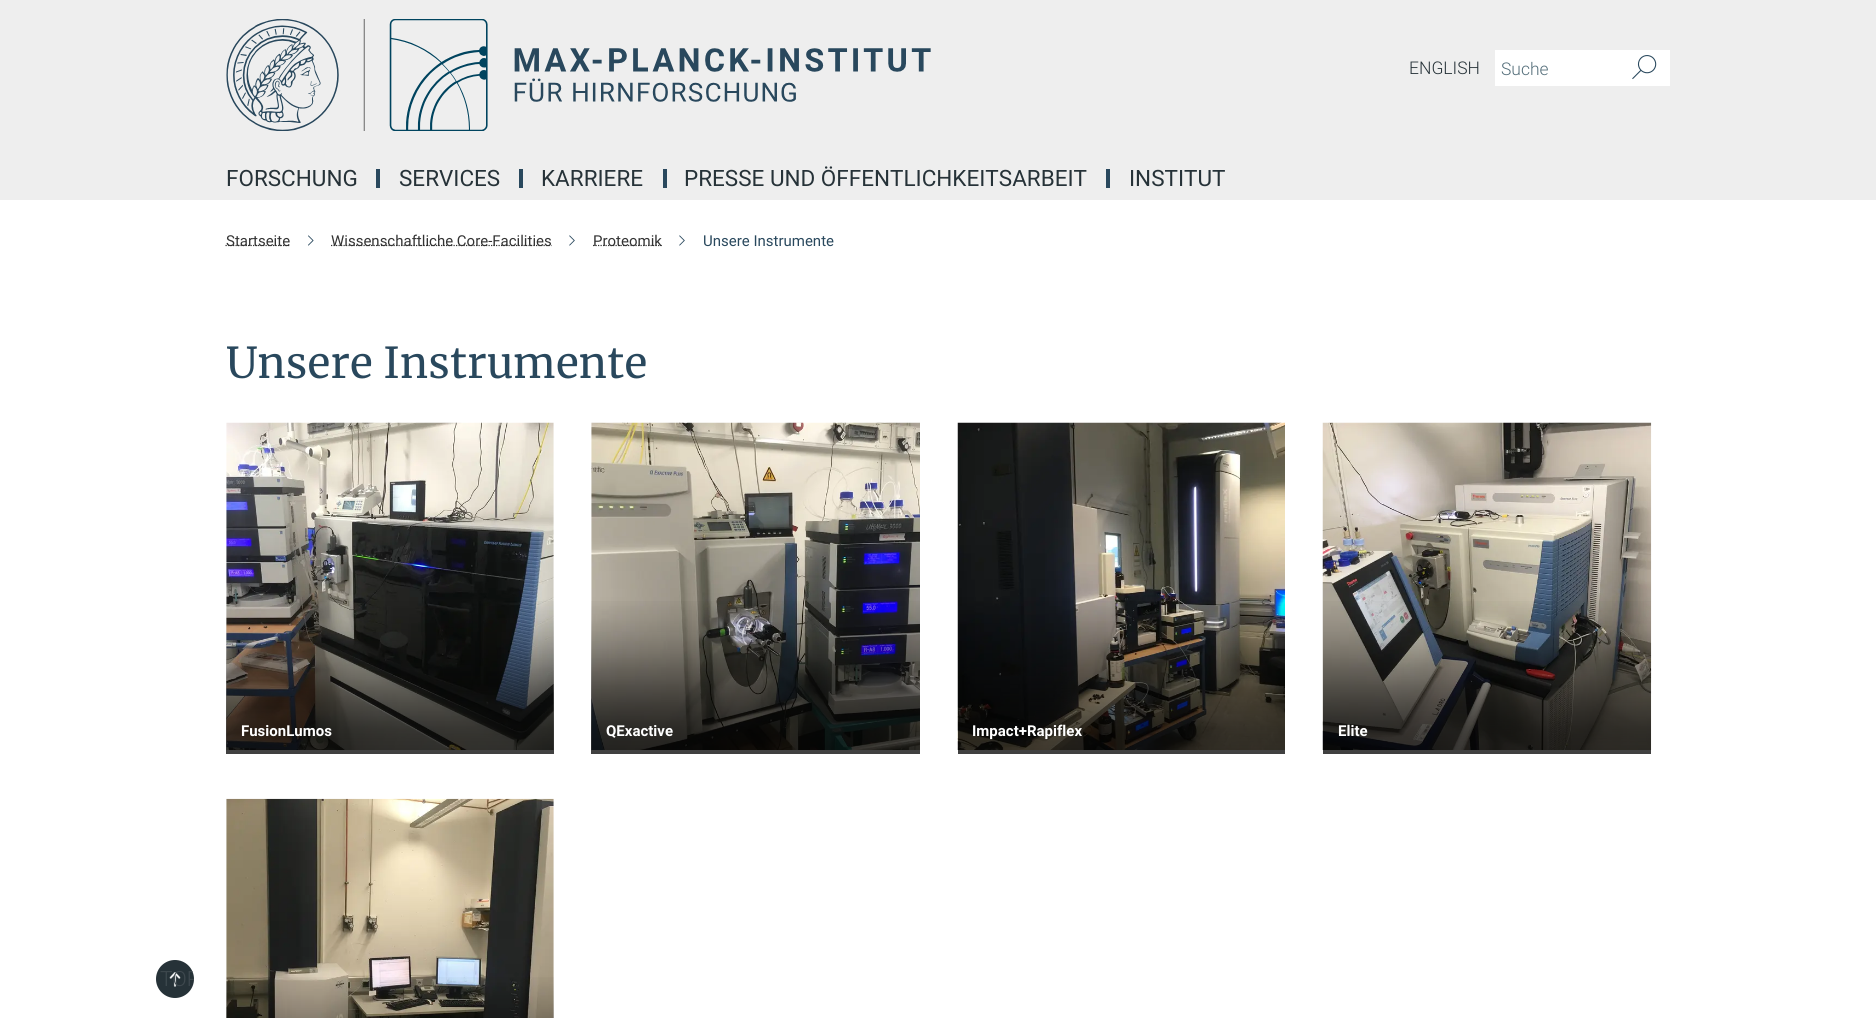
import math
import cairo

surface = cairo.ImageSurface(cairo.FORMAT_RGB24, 1876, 1018)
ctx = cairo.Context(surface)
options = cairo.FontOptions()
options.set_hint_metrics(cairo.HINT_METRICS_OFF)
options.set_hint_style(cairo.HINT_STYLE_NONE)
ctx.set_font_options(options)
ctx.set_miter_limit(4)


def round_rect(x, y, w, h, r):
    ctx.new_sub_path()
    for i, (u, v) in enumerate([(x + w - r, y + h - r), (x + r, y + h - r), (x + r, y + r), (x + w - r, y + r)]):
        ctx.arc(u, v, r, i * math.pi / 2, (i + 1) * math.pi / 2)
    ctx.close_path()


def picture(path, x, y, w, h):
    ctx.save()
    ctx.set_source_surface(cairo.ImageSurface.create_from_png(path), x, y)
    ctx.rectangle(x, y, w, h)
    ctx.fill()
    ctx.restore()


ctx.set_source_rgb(1, 1, 1)
ctx.paint()
ctx.set_source_rgb(0.933, 0.933, 0.933)
ctx.rectangle(0, 0, 1876, 200)
ctx.fill()
picture("img1.png", 226, 19, 705, 112)
ctx.select_font_face("Roboto Light")
ctx.set_font_size(17.5)
ctx.set_source_rgb(0.149, 0.196, 0.22)
ctx.move_to(1409, 74)
ctx.show_text("ENGLISH")
ctx.set_source_rgb(1, 1, 1)
ctx.rectangle(1495, 50, 175, 36)
ctx.fill()
ctx.set_source_rgb(0.329, 0.431, 0.478)
ctx.move_to(1501, 75)
ctx.show_text("Suche")
picture("img2.png", 1632, 55, 25, 25)
ctx.set_source_rgb(0.161, 0.282, 0.365)
ctx.rectangle(376, 169, 4, 19)
ctx.fill()
ctx.select_font_face("Roboto")
ctx.set_font_size(22.5)
ctx.set_source_rgb(0.149, 0.196, 0.22)
ctx.move_to(226, 186)
ctx.show_text("FORSCHUNG")
ctx.set_source_rgb(0.161, 0.282, 0.365)
ctx.rectangle(519, 169, 4, 19)
ctx.fill()
ctx.set_source_rgb(0.149, 0.196, 0.22)
ctx.move_to(399, 186)
ctx.show_text("SERVICES")
ctx.set_source_rgb(0.161, 0.282, 0.365)
ctx.rectangle(663, 169, 4, 19)
ctx.fill()
ctx.set_source_rgb(0.149, 0.196, 0.22)
ctx.move_to(541, 186)
ctx.show_text("KARRIERE")
ctx.set_source_rgb(0.161, 0.282, 0.365)
ctx.rectangle(1106, 169, 4, 19)
ctx.fill()
ctx.set_source_rgb(0.149, 0.196, 0.22)
ctx.move_to(684, 186)
ctx.show_text("PRESSE UND ÖFFENTLICHKEITSARBEIT")
ctx.move_to(1129, 186)
ctx.show_text("INSTITUT")
ctx.new_path()
ctx.move_to(225.5, 245.5)
ctx.line_to(289.5, 245.5)
ctx.set_source_rgb(0.2, 0.2, 0.2)
ctx.set_line_width(1.2)
ctx.set_dash([1.25, 1.25])
ctx.stroke()
ctx.set_font_size(15)
ctx.move_to(226, 246)
ctx.show_text("Startseite")
picture("img3.png", 308, 235, 6, 11)
ctx.new_path()
ctx.move_to(331, 245.5)
ctx.line_to(551.5, 245.5)
ctx.stroke()
ctx.move_to(331, 246)
ctx.show_text("Wissenschaftliche Core-Facilities")
picture("img4.png", 569, 235, 6, 11)
ctx.new_path()
ctx.move_to(593, 245.5)
ctx.line_to(662, 245.5)
ctx.stroke()
ctx.move_to(593, 246)
ctx.show_text("Proteomik")
picture("img4.png", 679, 235, 6, 11)
ctx.set_source_rgb(0.161, 0.282, 0.365)
ctx.move_to(703, 246)
ctx.show_text("Unsere Instrumente")
ctx.select_font_face("Merriweather")
ctx.set_font_size(42.5)
ctx.move_to(226, 378)
ctx.show_text("Unsere Instrumente")
picture("img5.png", 226, 422, 328, 328)
gradient = cairo.LinearGradient(390, 584, 390, 754)
gradient.add_color_stop_rgba(0, 0, 0, 0, 0)
gradient.add_color_stop_rgba(0.05, 0, 0, 0, 0)
gradient.add_color_stop_rgba(0.1, 0, 0, 0, 0.02)
gradient.add_color_stop_rgba(0.15, 0, 0, 0, 0.05)
gradient.add_color_stop_rgba(0.2, 0, 0, 0, 0.08)
gradient.add_color_stop_rgba(0.25, 0, 0, 0, 0.12)
gradient.add_color_stop_rgba(0.3, 0, 0, 0, 0.16)
gradient.add_color_stop_rgba(0.35, 0, 0, 0, 0.21)
gradient.add_color_stop_rgba(0.4, 0, 0, 0, 0.26)
gradient.add_color_stop_rgba(0.45, 0, 0, 0, 0.32)
gradient.add_color_stop_rgba(0.5, 0, 0, 0, 0.38)
gradient.add_color_stop_rgba(0.55, 0, 0, 0, 0.43)
gradient.add_color_stop_rgba(0.6, 0, 0, 0, 0.49)
gradient.add_color_stop_rgba(0.65, 0, 0, 0, 0.54)
gradient.add_color_stop_rgba(0.7, 0, 0, 0, 0.59)
gradient.add_color_stop_rgba(0.75, 0, 0, 0, 0.63)
gradient.add_color_stop_rgba(0.8, 0, 0, 0, 0.67)
gradient.add_color_stop_rgba(0.85, 0, 0, 0, 0.71)
gradient.add_color_stop_rgba(0.9, 0, 0, 0, 0.73)
gradient.add_color_stop_rgba(0.95, 0, 0, 0, 0.74)
gradient.add_color_stop_rgba(1, 0, 0, 0, 0.75)
ctx.set_source(gradient)
ctx.rectangle(226, 601, 328, 153)
ctx.fill()
ctx.select_font_face("Roboto", cairo.FONT_SLANT_NORMAL, cairo.FONT_WEIGHT_BOLD)
ctx.set_font_size(15)
ctx.set_source_rgb(1, 1, 1)
ctx.move_to(241, 736)
ctx.show_text("FusionLumos")
picture("img6.png", 591, 422, 329, 328)
gradient = cairo.LinearGradient(756, 584, 756, 754)
gradient.add_color_stop_rgba(0, 0, 0, 0, 0)
gradient.add_color_stop_rgba(0.05, 0, 0, 0, 0)
gradient.add_color_stop_rgba(0.1, 0, 0, 0, 0.02)
gradient.add_color_stop_rgba(0.15, 0, 0, 0, 0.05)
gradient.add_color_stop_rgba(0.2, 0, 0, 0, 0.08)
gradient.add_color_stop_rgba(0.25, 0, 0, 0, 0.12)
gradient.add_color_stop_rgba(0.3, 0, 0, 0, 0.16)
gradient.add_color_stop_rgba(0.35, 0, 0, 0, 0.21)
gradient.add_color_stop_rgba(0.4, 0, 0, 0, 0.26)
gradient.add_color_stop_rgba(0.45, 0, 0, 0, 0.32)
gradient.add_color_stop_rgba(0.5, 0, 0, 0, 0.38)
gradient.add_color_stop_rgba(0.55, 0, 0, 0, 0.43)
gradient.add_color_stop_rgba(0.6, 0, 0, 0, 0.49)
gradient.add_color_stop_rgba(0.65, 0, 0, 0, 0.54)
gradient.add_color_stop_rgba(0.7, 0, 0, 0, 0.59)
gradient.add_color_stop_rgba(0.75, 0, 0, 0, 0.63)
gradient.add_color_stop_rgba(0.8, 0, 0, 0, 0.67)
gradient.add_color_stop_rgba(0.85, 0, 0, 0, 0.71)
gradient.add_color_stop_rgba(0.9, 0, 0, 0, 0.73)
gradient.add_color_stop_rgba(0.95, 0, 0, 0, 0.74)
gradient.add_color_stop_rgba(1, 0, 0, 0, 0.75)
ctx.set_source(gradient)
ctx.rectangle(591, 601, 329, 153)
ctx.fill()
ctx.set_source_rgb(1, 1, 1)
ctx.move_to(606, 736)
ctx.show_text("QExactive")
picture("img7.png", 957, 422, 328, 328)
gradient = cairo.LinearGradient(1121, 584, 1121, 754)
gradient.add_color_stop_rgba(0, 0, 0, 0, 0)
gradient.add_color_stop_rgba(0.05, 0, 0, 0, 0)
gradient.add_color_stop_rgba(0.1, 0, 0, 0, 0.02)
gradient.add_color_stop_rgba(0.15, 0, 0, 0, 0.05)
gradient.add_color_stop_rgba(0.2, 0, 0, 0, 0.08)
gradient.add_color_stop_rgba(0.25, 0, 0, 0, 0.12)
gradient.add_color_stop_rgba(0.3, 0, 0, 0, 0.16)
gradient.add_color_stop_rgba(0.35, 0, 0, 0, 0.21)
gradient.add_color_stop_rgba(0.4, 0, 0, 0, 0.26)
gradient.add_color_stop_rgba(0.45, 0, 0, 0, 0.32)
gradient.add_color_stop_rgba(0.5, 0, 0, 0, 0.38)
gradient.add_color_stop_rgba(0.55, 0, 0, 0, 0.43)
gradient.add_color_stop_rgba(0.6, 0, 0, 0, 0.49)
gradient.add_color_stop_rgba(0.65, 0, 0, 0, 0.54)
gradient.add_color_stop_rgba(0.7, 0, 0, 0, 0.59)
gradient.add_color_stop_rgba(0.75, 0, 0, 0, 0.63)
gradient.add_color_stop_rgba(0.8, 0, 0, 0, 0.67)
gradient.add_color_stop_rgba(0.85, 0, 0, 0, 0.71)
gradient.add_color_stop_rgba(0.9, 0, 0, 0, 0.73)
gradient.add_color_stop_rgba(0.95, 0, 0, 0, 0.74)
gradient.add_color_stop_rgba(1, 0, 0, 0, 0.75)
ctx.set_source(gradient)
ctx.rectangle(958, 601, 327, 153)
ctx.fill()
ctx.set_source_rgb(1, 1, 1)
ctx.move_to(972, 736)
ctx.show_text("Impact+Rapiflex")
picture("img8.png", 1322, 422, 330, 328)
gradient = cairo.LinearGradient(1487, 584, 1487, 754)
gradient.add_color_stop_rgba(0, 0, 0, 0, 0)
gradient.add_color_stop_rgba(0.05, 0, 0, 0, 0)
gradient.add_color_stop_rgba(0.1, 0, 0, 0, 0.02)
gradient.add_color_stop_rgba(0.15, 0, 0, 0, 0.05)
gradient.add_color_stop_rgba(0.2, 0, 0, 0, 0.08)
gradient.add_color_stop_rgba(0.25, 0, 0, 0, 0.12)
gradient.add_color_stop_rgba(0.3, 0, 0, 0, 0.16)
gradient.add_color_stop_rgba(0.35, 0, 0, 0, 0.21)
gradient.add_color_stop_rgba(0.4, 0, 0, 0, 0.26)
gradient.add_color_stop_rgba(0.45, 0, 0, 0, 0.32)
gradient.add_color_stop_rgba(0.5, 0, 0, 0, 0.38)
gradient.add_color_stop_rgba(0.55, 0, 0, 0, 0.43)
gradient.add_color_stop_rgba(0.6, 0, 0, 0, 0.49)
gradient.add_color_stop_rgba(0.65, 0, 0, 0, 0.54)
gradient.add_color_stop_rgba(0.7, 0, 0, 0, 0.59)
gradient.add_color_stop_rgba(0.75, 0, 0, 0, 0.63)
gradient.add_color_stop_rgba(0.8, 0, 0, 0, 0.67)
gradient.add_color_stop_rgba(0.85, 0, 0, 0, 0.71)
gradient.add_color_stop_rgba(0.9, 0, 0, 0, 0.73)
gradient.add_color_stop_rgba(0.95, 0, 0, 0, 0.74)
gradient.add_color_stop_rgba(1, 0, 0, 0, 0.75)
ctx.set_source(gradient)
ctx.rectangle(1323, 601, 328, 153)
ctx.fill()
ctx.set_source_rgb(1, 1, 1)
ctx.move_to(1338, 736)
ctx.show_text("Elite")
picture("img9.png", 226, 798, 328, 220)
gradient = cairo.LinearGradient(390, 960, 390, 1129)
gradient.add_color_stop_rgba(0, 0, 0, 0, 0)
gradient.add_color_stop_rgba(0.05, 0, 0, 0, 0)
gradient.add_color_stop_rgba(0.1, 0, 0, 0, 0.02)
gradient.add_color_stop_rgba(0.15, 0, 0, 0, 0.05)
gradient.add_color_stop_rgba(0.2, 0, 0, 0, 0.08)
gradient.add_color_stop_rgba(0.25, 0, 0, 0, 0.12)
gradient.add_color_stop_rgba(0.3, 0, 0, 0, 0.16)
gradient.add_color_stop_rgba(0.35, 0, 0, 0, 0.21)
gradient.add_color_stop_rgba(0.4, 0, 0, 0, 0.26)
gradient.add_color_stop_rgba(0.45, 0, 0, 0, 0.32)
gradient.add_color_stop_rgba(0.5, 0, 0, 0, 0.38)
gradient.add_color_stop_rgba(0.55, 0, 0, 0, 0.43)
gradient.add_color_stop_rgba(0.6, 0, 0, 0, 0.49)
gradient.add_color_stop_rgba(0.65, 0, 0, 0, 0.54)
gradient.add_color_stop_rgba(0.7, 0, 0, 0, 0.59)
gradient.add_color_stop_rgba(0.75, 0, 0, 0, 0.63)
gradient.add_color_stop_rgba(0.8, 0, 0, 0, 0.67)
gradient.add_color_stop_rgba(0.85, 0, 0, 0, 0.71)
gradient.add_color_stop_rgba(0.9, 0, 0, 0, 0.73)
gradient.add_color_stop_rgba(0.95, 0, 0, 0, 0.74)
gradient.add_color_stop_rgba(1, 0, 0, 0, 0.75)
ctx.set_source(gradient)
ctx.rectangle(226, 977, 328, 41)
ctx.fill()
ctx.set_source_rgb(0.149, 0.196, 0.22)
ctx.arc(175, 979, 19, 0, 2 * math.pi)
ctx.fill()
picture("img10.png", 169, 972, 12, 15)
ctx.save()
round_rect(156, 960, 38, 38, 19)
ctx.clip()
ctx.select_font_face("Roboto Light")
ctx.set_font_size(21)
ctx.set_source_rgb(0.243, 0.282, 0.306)
ctx.move_to(160, 986)
ctx.show_text("TOP")
ctx.restore()
surface.write_to_png("page.png")
